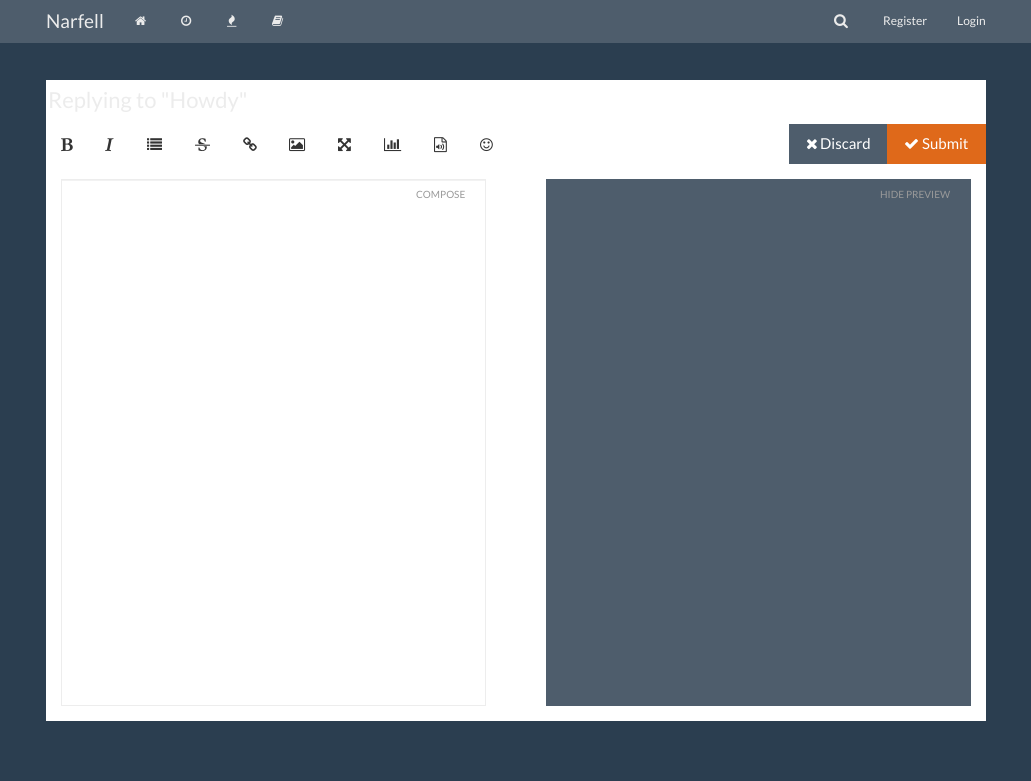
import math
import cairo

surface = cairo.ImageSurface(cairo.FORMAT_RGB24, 1031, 781)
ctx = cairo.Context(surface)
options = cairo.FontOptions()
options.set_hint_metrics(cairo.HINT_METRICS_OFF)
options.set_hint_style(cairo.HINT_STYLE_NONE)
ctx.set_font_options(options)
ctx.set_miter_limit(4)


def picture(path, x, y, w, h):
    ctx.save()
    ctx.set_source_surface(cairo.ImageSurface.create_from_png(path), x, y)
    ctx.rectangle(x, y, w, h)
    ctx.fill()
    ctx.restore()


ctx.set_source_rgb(0.169, 0.243, 0.314)
ctx.paint()
ctx.set_source_rgb(0.306, 0.365, 0.424)
ctx.rectangle(0, 0, 1031, 43)
ctx.fill()
ctx.select_font_face("Lato")
ctx.set_font_size(19)
ctx.set_source_rgb(0.922, 0.922, 0.922)
ctx.move_to(46, 28)
ctx.show_text("Narfell")
picture("img1.png", 135, 16, 11, 9)
picture("img2.png", 181, 15, 11, 11)
picture("img3.png", 227, 14, 10, 13)
picture("img4.png", 272, 15, 12, 11)
picture("img5.png", 834, 14, 14, 15)
ctx.set_font_size(12)
ctx.move_to(883, 25)
ctx.show_text("Register")
ctx.move_to(957, 25)
ctx.show_text("Login")
ctx.set_source_rgb(1, 1, 1)
ctx.rectangle(46, 80, 940, 641)
ctx.fill()
ctx.set_font_size(22)
ctx.set_source_rgb(0.922, 0.922, 0.922)
ctx.move_to(48, 108)
ctx.show_text("Replying to \"Howdy\"")
picture("img6.png", 61, 138, 12, 14)
picture("img7.png", 105, 138, 9, 14)
picture("img8.png", 147, 138, 15, 12)
picture("img9.png", 195, 138, 15, 14)
picture("img10.png", 243, 137, 14, 14)
picture("img11.png", 289, 138, 17, 14)
picture("img12.png", 338, 138, 13, 14)
picture("img13.png", 384, 138, 18, 14)
picture("img14.png", 434, 137, 13, 16)
picture("img15.png", 480, 138, 13, 14)
ctx.set_source_rgb(0.306, 0.365, 0.424)
ctx.rectangle(789, 124, 98, 40)
ctx.fill()
picture("img16.png", 807, 139, 10, 11)
ctx.set_font_size(15)
ctx.set_source_rgb(1, 1, 1)
ctx.move_to(820, 149)
ctx.show_text("Discard")
ctx.set_source_rgb(0.875, 0.412, 0.102)
ctx.rectangle(887, 124, 99, 40)
ctx.fill()
picture("img17.png", 905, 139, 13, 10)
ctx.set_source_rgb(1, 1, 1)
ctx.move_to(922, 149)
ctx.show_text("Submit")
ctx.set_source_rgb(0.949, 0.949, 0.949)
ctx.rectangle(62, 180, 423, 1)
ctx.fill()
ctx.rectangle(61.5, 179.5, 424, 526)
ctx.set_source_rgb(0.929, 0.929, 0.929)
ctx.set_line_width(1)
ctx.stroke()
ctx.set_font_size(10)
ctx.set_source_rgb(0.6, 0.6, 0.6)
ctx.move_to(416, 198)
ctx.show_text("COMPOSE")
ctx.set_source_rgb(0.306, 0.365, 0.424)
ctx.rectangle(546, 179, 425, 527)
ctx.fill()
ctx.set_source_rgb(0.6, 0.6, 0.6)
ctx.move_to(880, 198)
ctx.show_text("HIDE PREVIEW")
surface.write_to_png("page.png")
